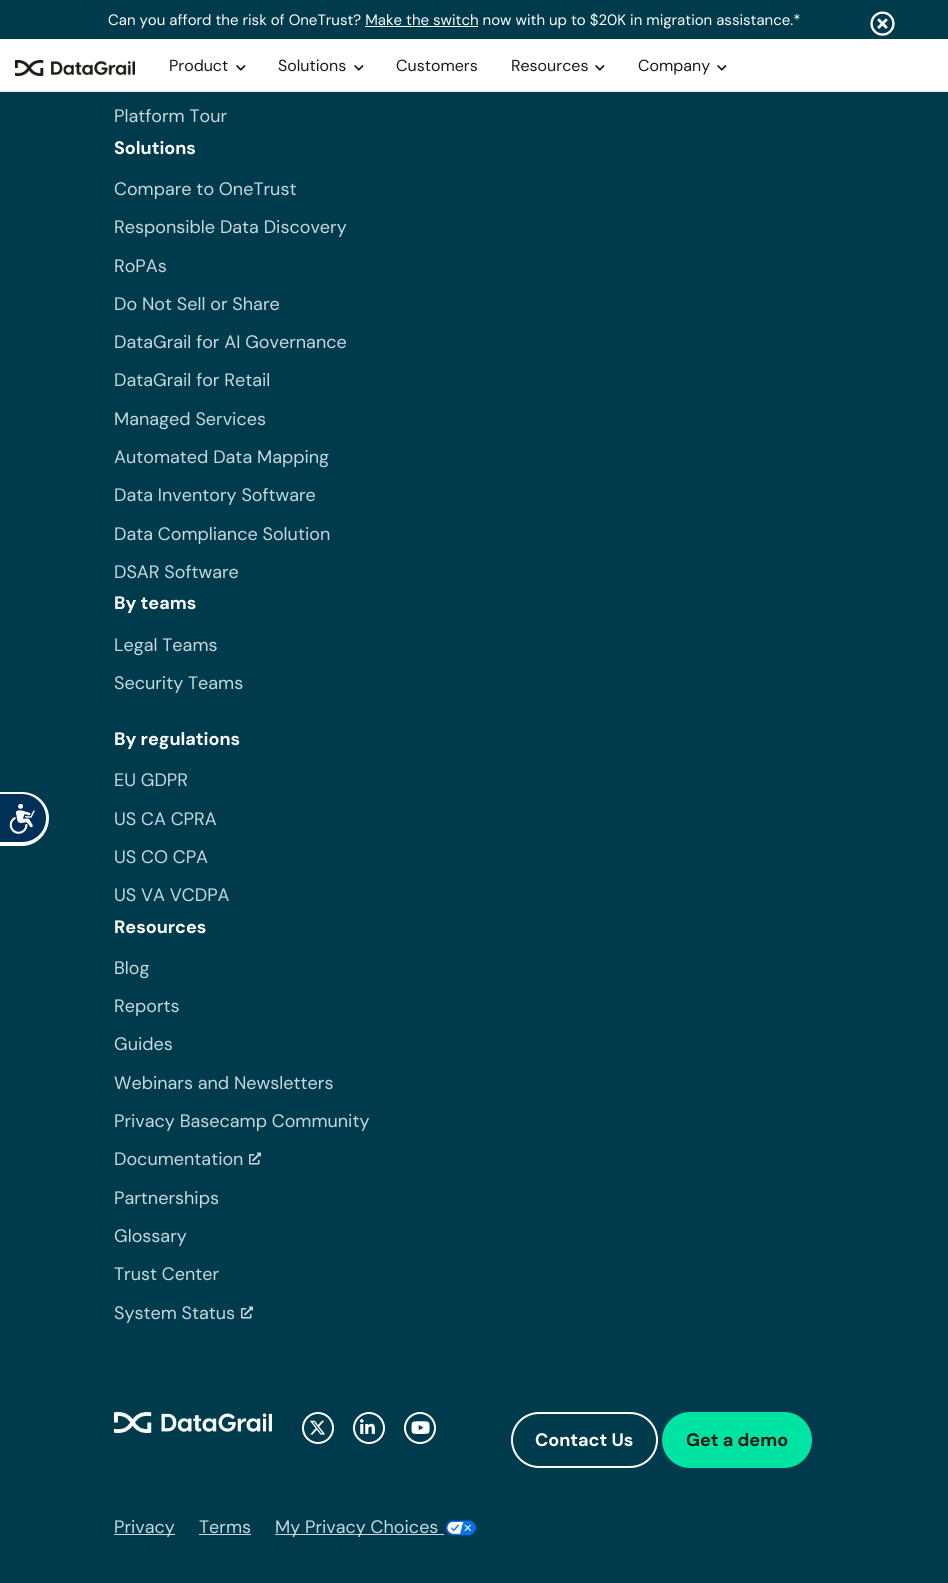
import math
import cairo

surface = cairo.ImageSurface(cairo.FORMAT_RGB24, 948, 1583)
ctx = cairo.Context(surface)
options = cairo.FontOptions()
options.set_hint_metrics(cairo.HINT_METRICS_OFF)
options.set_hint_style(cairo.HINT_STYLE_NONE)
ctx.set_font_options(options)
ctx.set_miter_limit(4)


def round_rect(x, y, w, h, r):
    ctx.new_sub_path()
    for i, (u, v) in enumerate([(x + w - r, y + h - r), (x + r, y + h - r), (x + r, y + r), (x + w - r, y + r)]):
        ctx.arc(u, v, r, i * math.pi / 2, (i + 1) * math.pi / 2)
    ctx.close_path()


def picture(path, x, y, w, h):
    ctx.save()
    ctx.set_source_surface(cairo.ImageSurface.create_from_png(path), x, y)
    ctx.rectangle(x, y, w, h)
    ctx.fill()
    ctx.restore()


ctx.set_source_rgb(0, 0.231, 0.302)
ctx.paint()
ctx.set_source_rgb(1, 1, 1)
ctx.rectangle(0, 39, 948, 52)
ctx.fill()
ctx.set_source_rgb(0.894, 0.902, 0.91)
ctx.rectangle(0, 91, 948, 1)
ctx.fill()
ctx.select_font_face("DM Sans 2")
ctx.set_font_size(15)
ctx.set_source_rgb(1, 1, 1)
ctx.move_to(108, 25)
ctx.show_text("Can you afford the risk of OneTrust? Make the switch now with up to $20K in migration assistance.*")
ctx.rectangle(365, 26, 113, 1)
ctx.fill()
picture("img1.png", 870, 11, 25, 25)
picture("img2.png", 15, 60, 120, 16)
ctx.select_font_face("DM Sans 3")
ctx.set_font_size(16)
ctx.set_source_rgb(0.11, 0.106, 0.067)
ctx.move_to(169, 71)
ctx.show_text("Product")
picture("img3.png", 236, 65, 10, 6)
ctx.move_to(278, 71)
ctx.show_text("Solutions")
picture("img3.png", 354, 65, 10, 6)
ctx.move_to(396, 71)
ctx.show_text("Customers")
ctx.move_to(511, 71)
ctx.show_text("Resources")
picture("img3.png", 595, 65, 10, 6)
ctx.move_to(638, 71)
ctx.show_text("Company")
picture("img3.png", 717, 65, 10, 6)
ctx.set_source_rgb(0, 0.188, 0.341)
ctx.new_path()
ctx.move_to(0, 792)
ctx.line_to(22, 792)
ctx.curve_to(37, 792, 49, 804, 49, 819)
ctx.curve_to(49, 834, 37, 846, 22, 846)
ctx.line_to(0, 846)
ctx.close_path()
ctx.fill()
ctx.set_source_rgb(1, 1, 1)
ctx.set_fill_rule(cairo.FILL_RULE_EVEN_ODD)
ctx.new_path()
ctx.move_to(0, 792)
ctx.line_to(22, 792)
ctx.curve_to(37, 792, 49, 804, 49, 818)
ctx.curve_to(49, 833, 37, 846, 22, 846)
ctx.line_to(0, 846)
ctx.close_path()
ctx.move_to(0, 794)
ctx.line_to(22, 794)
ctx.curve_to(35, 794, 46, 805, 46, 818)
ctx.curve_to(46, 832, 35, 842, 22, 842)
ctx.line_to(0, 842)
ctx.close_path()
ctx.fill()
picture("img4.png", 9, 804, 26, 30)
ctx.select_font_face("DM Sans")
ctx.set_font_size(18)
ctx.set_source_rgb(0.78, 0.851, 0.871)
ctx.move_to(114, 122)
ctx.show_text("Platform Tour")
ctx.select_font_face("DM Sans", cairo.FONT_SLANT_NORMAL, cairo.FONT_WEIGHT_BOLD)
ctx.set_source_rgb(1, 1, 1)
ctx.move_to(114, 154)
ctx.show_text("Solutions")
ctx.select_font_face("DM Sans")
ctx.set_source_rgb(0.78, 0.851, 0.871)
ctx.move_to(114, 195)
ctx.show_text("Compare to OneTrust")
ctx.move_to(114, 233)
ctx.show_text("Responsible Data Discovery")
ctx.move_to(114, 272)
ctx.show_text("RoPAs")
ctx.move_to(114, 310)
ctx.show_text("Do Not Sell or Share")
ctx.move_to(114, 348)
ctx.show_text("DataGrail for AI Governance")
ctx.move_to(114, 386)
ctx.show_text("DataGrail for Retail")
ctx.move_to(114, 425)
ctx.show_text("Managed Services")
ctx.move_to(114, 463)
ctx.show_text("Automated Data Mapping")
ctx.move_to(114, 501)
ctx.show_text("Data Inventory Software")
ctx.move_to(114, 540)
ctx.show_text("Data Compliance Solution")
ctx.move_to(114, 578)
ctx.show_text("DSAR Software")
ctx.select_font_face("DM Sans", cairo.FONT_SLANT_NORMAL, cairo.FONT_WEIGHT_BOLD)
ctx.set_source_rgb(1, 1, 1)
ctx.move_to(114, 609)
ctx.show_text("By teams")
ctx.select_font_face("DM Sans")
ctx.set_source_rgb(0.78, 0.851, 0.871)
ctx.move_to(114, 651)
ctx.show_text("Legal Teams")
ctx.move_to(114, 689)
ctx.show_text("Security Teams")
ctx.select_font_face("DM Sans", cairo.FONT_SLANT_NORMAL, cairo.FONT_WEIGHT_BOLD)
ctx.set_source_rgb(1, 1, 1)
ctx.move_to(114, 745)
ctx.show_text("By regulations")
ctx.select_font_face("DM Sans")
ctx.set_source_rgb(0.78, 0.851, 0.871)
ctx.move_to(114, 786)
ctx.show_text("EU GDPR")
ctx.move_to(114, 825)
ctx.show_text("US CA CPRA")
ctx.move_to(114, 863)
ctx.show_text("US CO CPA")
ctx.move_to(114, 901)
ctx.show_text("US VA VCDPA")
ctx.select_font_face("DM Sans", cairo.FONT_SLANT_NORMAL, cairo.FONT_WEIGHT_BOLD)
ctx.set_source_rgb(1, 1, 1)
ctx.move_to(114, 933)
ctx.show_text("Resources")
ctx.select_font_face("DM Sans")
ctx.set_source_rgb(0.78, 0.851, 0.871)
ctx.move_to(114, 974)
ctx.show_text("Blog")
ctx.move_to(114, 1012)
ctx.show_text("Reports")
ctx.move_to(114, 1050)
ctx.show_text("Guides")
ctx.move_to(114, 1089)
ctx.show_text("Webinars and Newsletters")
ctx.move_to(114, 1127)
ctx.show_text("Privacy Basecamp Community")
ctx.move_to(114, 1165)
ctx.show_text("Documentation")
picture("img5.png", 249, 1152, 12, 13)
ctx.move_to(114, 1204)
ctx.show_text("Partnerships")
ctx.move_to(114, 1242)
ctx.show_text("Glossary")
ctx.move_to(114, 1280)
ctx.show_text("Trust Center")
ctx.move_to(114, 1319)
ctx.show_text("System Status")
picture("img5.png", 241, 1306, 12, 13)
picture("img6.png", 114, 1412, 158, 21)
ctx.arc(318, 1428, 15, 0, 2 * math.pi)
ctx.set_source_rgb(1, 1, 1)
ctx.stroke()
picture("img7.png", 310, 1420, 15, 15)
ctx.arc(369, 1428, 15, 0, 2 * math.pi)
ctx.stroke()
picture("img8.png", 360, 1419, 15, 15)
ctx.arc(420, 1428, 15, 0, 2 * math.pi)
ctx.stroke()
picture("img9.png", 411, 1421, 19, 13)
round_rect(512, 1413, 145, 54, 27)
ctx.stroke()
ctx.select_font_face("DM Sans", cairo.FONT_SLANT_NORMAL, cairo.FONT_WEIGHT_BOLD)
ctx.move_to(535, 1446)
ctx.show_text("Contact Us")
ctx.set_source_rgb(0, 0.89, 0.639)
round_rect(663, 1413, 148, 54, 27)
ctx.fill_preserve()
ctx.stroke()
ctx.set_source_rgb(0.11, 0.106, 0.067)
ctx.move_to(686, 1446)
ctx.show_text("Get a demo")
ctx.set_source_rgb(0.78, 0.851, 0.871)
ctx.rectangle(114, 1534, 61, 1)
ctx.fill()
ctx.select_font_face("DM Sans")
ctx.move_to(114, 1533)
ctx.show_text("Privacy")
ctx.move_to(199, 1533)
ctx.show_text("Terms")
ctx.rectangle(199, 1534, 52, 1)
ctx.fill()
ctx.rectangle(275, 1534, 169, 1)
ctx.fill()
ctx.move_to(275, 1533)
ctx.show_text("My Privacy Choices")
picture("img10.png", 446, 1520, 30, 16)
surface.write_to_png("page.png")
